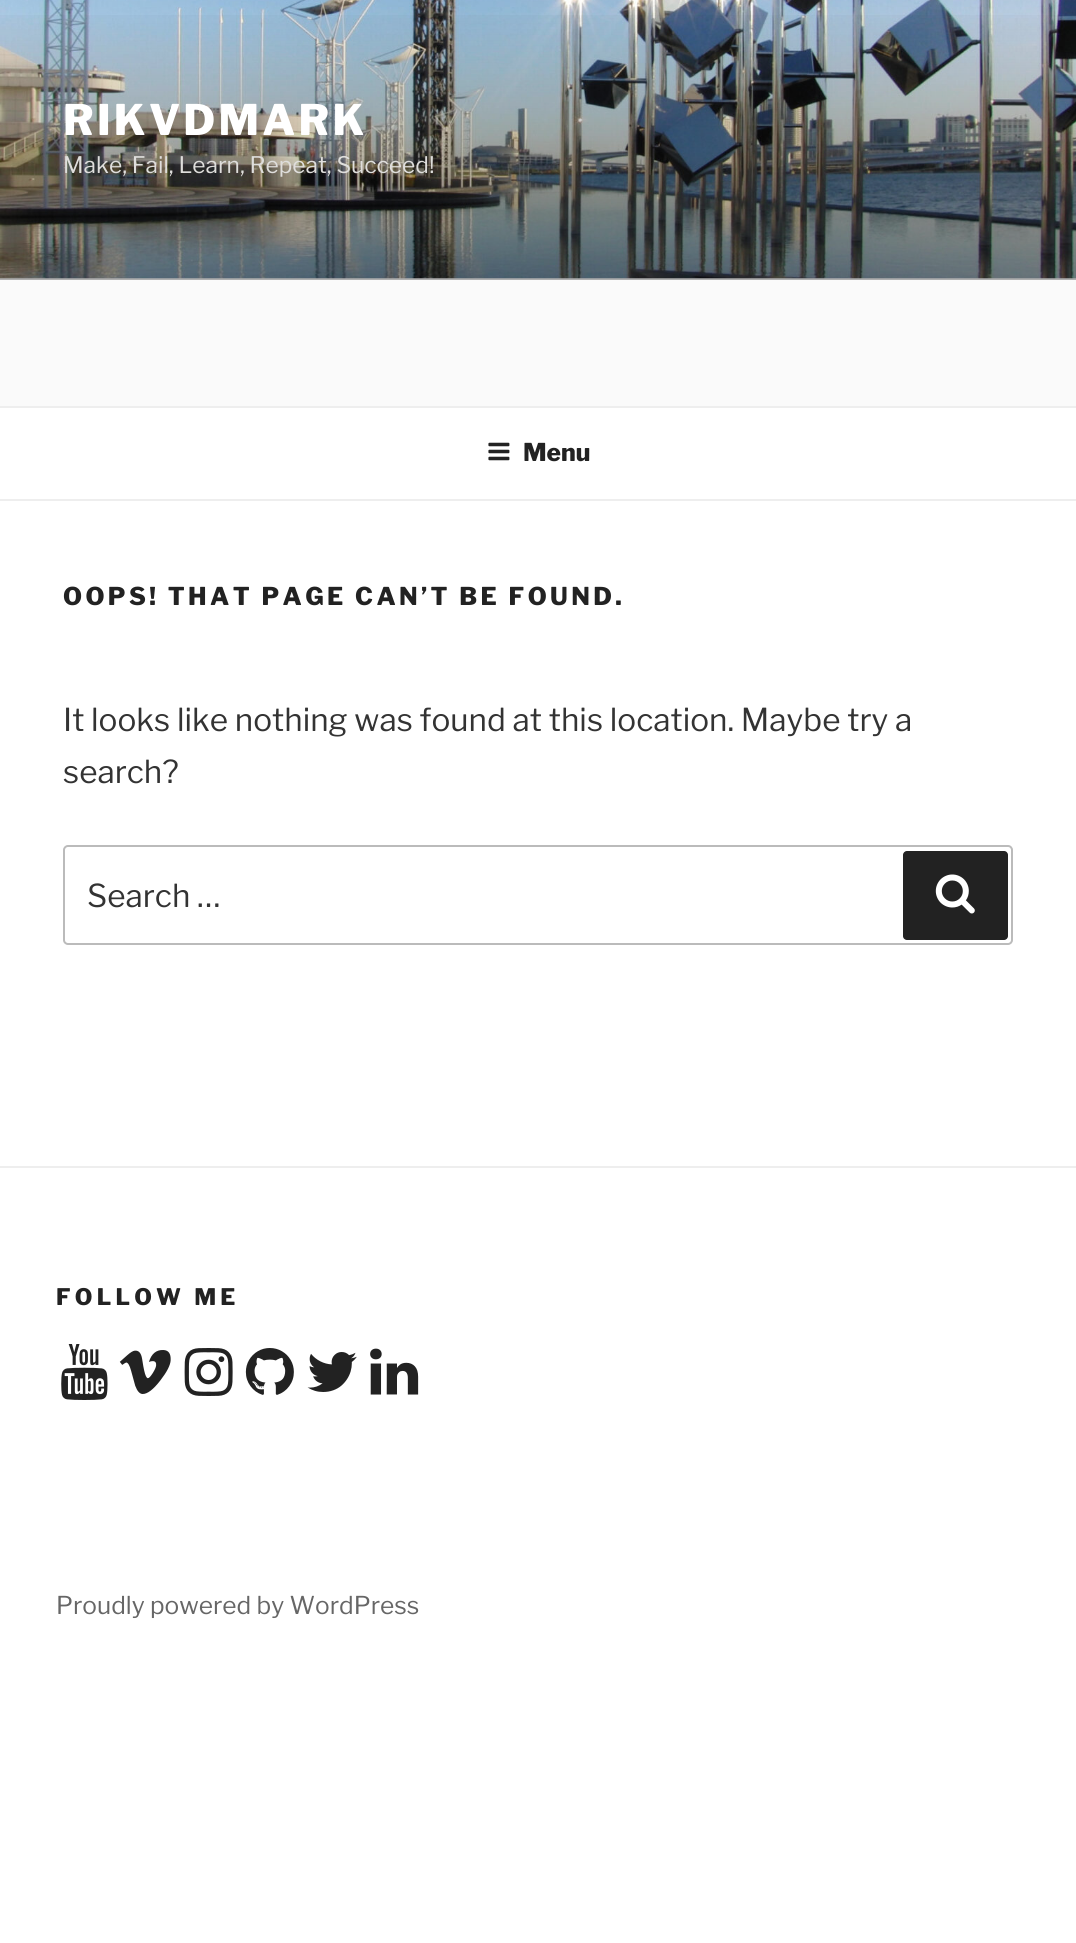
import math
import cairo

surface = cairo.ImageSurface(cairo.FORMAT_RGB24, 1076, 1943)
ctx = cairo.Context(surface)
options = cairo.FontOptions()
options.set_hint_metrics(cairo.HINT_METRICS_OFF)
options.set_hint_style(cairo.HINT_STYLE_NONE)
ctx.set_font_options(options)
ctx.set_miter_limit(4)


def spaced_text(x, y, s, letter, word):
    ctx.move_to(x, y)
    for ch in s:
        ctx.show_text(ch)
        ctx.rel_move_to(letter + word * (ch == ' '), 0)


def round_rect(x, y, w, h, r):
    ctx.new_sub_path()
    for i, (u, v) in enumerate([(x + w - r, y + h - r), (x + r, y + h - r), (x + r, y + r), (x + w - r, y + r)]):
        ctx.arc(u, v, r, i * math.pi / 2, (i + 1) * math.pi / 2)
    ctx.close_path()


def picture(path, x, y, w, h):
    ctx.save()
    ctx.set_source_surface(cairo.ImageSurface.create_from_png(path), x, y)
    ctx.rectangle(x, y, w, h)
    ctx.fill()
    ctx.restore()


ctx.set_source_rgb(1, 1, 1)
ctx.paint()
ctx.set_source_rgb(0.98, 0.98, 0.98)
ctx.rectangle(0, 278, 1076, 128)
ctx.fill()
picture("img1.png", 0, 0, 1076, 279)
gradient = cairo.LinearGradient(538, 0, 538, 280)
gradient.add_color_stop_rgba(0, 0, 0, 0, 0)
gradient.add_color_stop_rgba(0.75, 0, 0, 0, 0.3)
gradient.add_color_stop_rgba(1, 0, 0, 0, 0.3)
ctx.set_source(gradient)
ctx.rectangle(0, 15, 1076, 265)
ctx.fill()
ctx.select_font_face("Libre Franklin Thin")
ctx.set_font_size(42)
ctx.set_source_rgb(1, 1, 1)
spaced_text(63, 135, "RIKVDMARK", 3.25, 0)
ctx.select_font_face("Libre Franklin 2 Thin")
ctx.set_font_size(22.75)
ctx.set_source_rgb(0.875, 0.871, 0.863)
ctx.move_to(63, 173)
ctx.show_text("Make, Fail, Learn, Repeat, Succeed!")
ctx.set_source_rgb(0.933, 0.933, 0.933)
ctx.rectangle(0, 406, 1076, 2)
ctx.fill()
ctx.rectangle(0, 499, 1076, 2)
ctx.fill()
picture("img2.png", 488, 442, 22, 19)
ctx.select_font_face("Libre Franklin Thin")
ctx.set_font_size(24.5)
ctx.set_source_rgb(0.133, 0.133, 0.133)
ctx.move_to(523, 461)
ctx.show_text("Menu")
spaced_text(63, 605, "OOPS! THAT PAGE CAN’T BE FOUND.", 3.4, 0)
ctx.select_font_face("Libre Franklin 2 Thin")
ctx.set_font_size(31.5)
ctx.set_source_rgb(0.2, 0.2, 0.2)
ctx.move_to(63, 731)
ctx.show_text("It looks like nothing was found at this location. Maybe try a")
ctx.move_to(63, 783)
ctx.show_text("search?")
round_rect(64, 846, 948, 98, 4)
ctx.set_source_rgb(0.733, 0.733, 0.733)
ctx.stroke()
ctx.set_source_rgb(0.2, 0.2, 0.2)
ctx.move_to(87, 907)
ctx.show_text("Search …")
ctx.set_source_rgb(0.133, 0.133, 0.133)
round_rect(903, 851, 105, 89, 4)
ctx.fill()
picture("img3.png", 935, 874, 40, 40)
ctx.set_source_rgb(0.933, 0.933, 0.933)
ctx.rectangle(0, 1166, 1076, 2)
ctx.fill()
ctx.select_font_face("Libre Franklin Thin")
ctx.set_font_size(22.75)
ctx.set_source_rgb(0.133, 0.133, 0.133)
spaced_text(56, 1305, "FOLLOW ME", 4.25, 0)
picture("img4.png", 61, 1344, 47, 56)
picture("img5.png", 119, 1350, 52, 44)
picture("img6.png", 184, 1348, 49, 48)
picture("img7.png", 245, 1348, 49, 47)
picture("img8.png", 307, 1352, 50, 40)
picture("img9.png", 370, 1348, 49, 47)
ctx.select_font_face("Libre Franklin 2 Thin")
ctx.set_font_size(24.5)
ctx.set_source_rgb(0.4, 0.4, 0.4)
ctx.move_to(56, 1614)
ctx.show_text("Proudly powered by WordPress")
surface.write_to_png("page.png")
